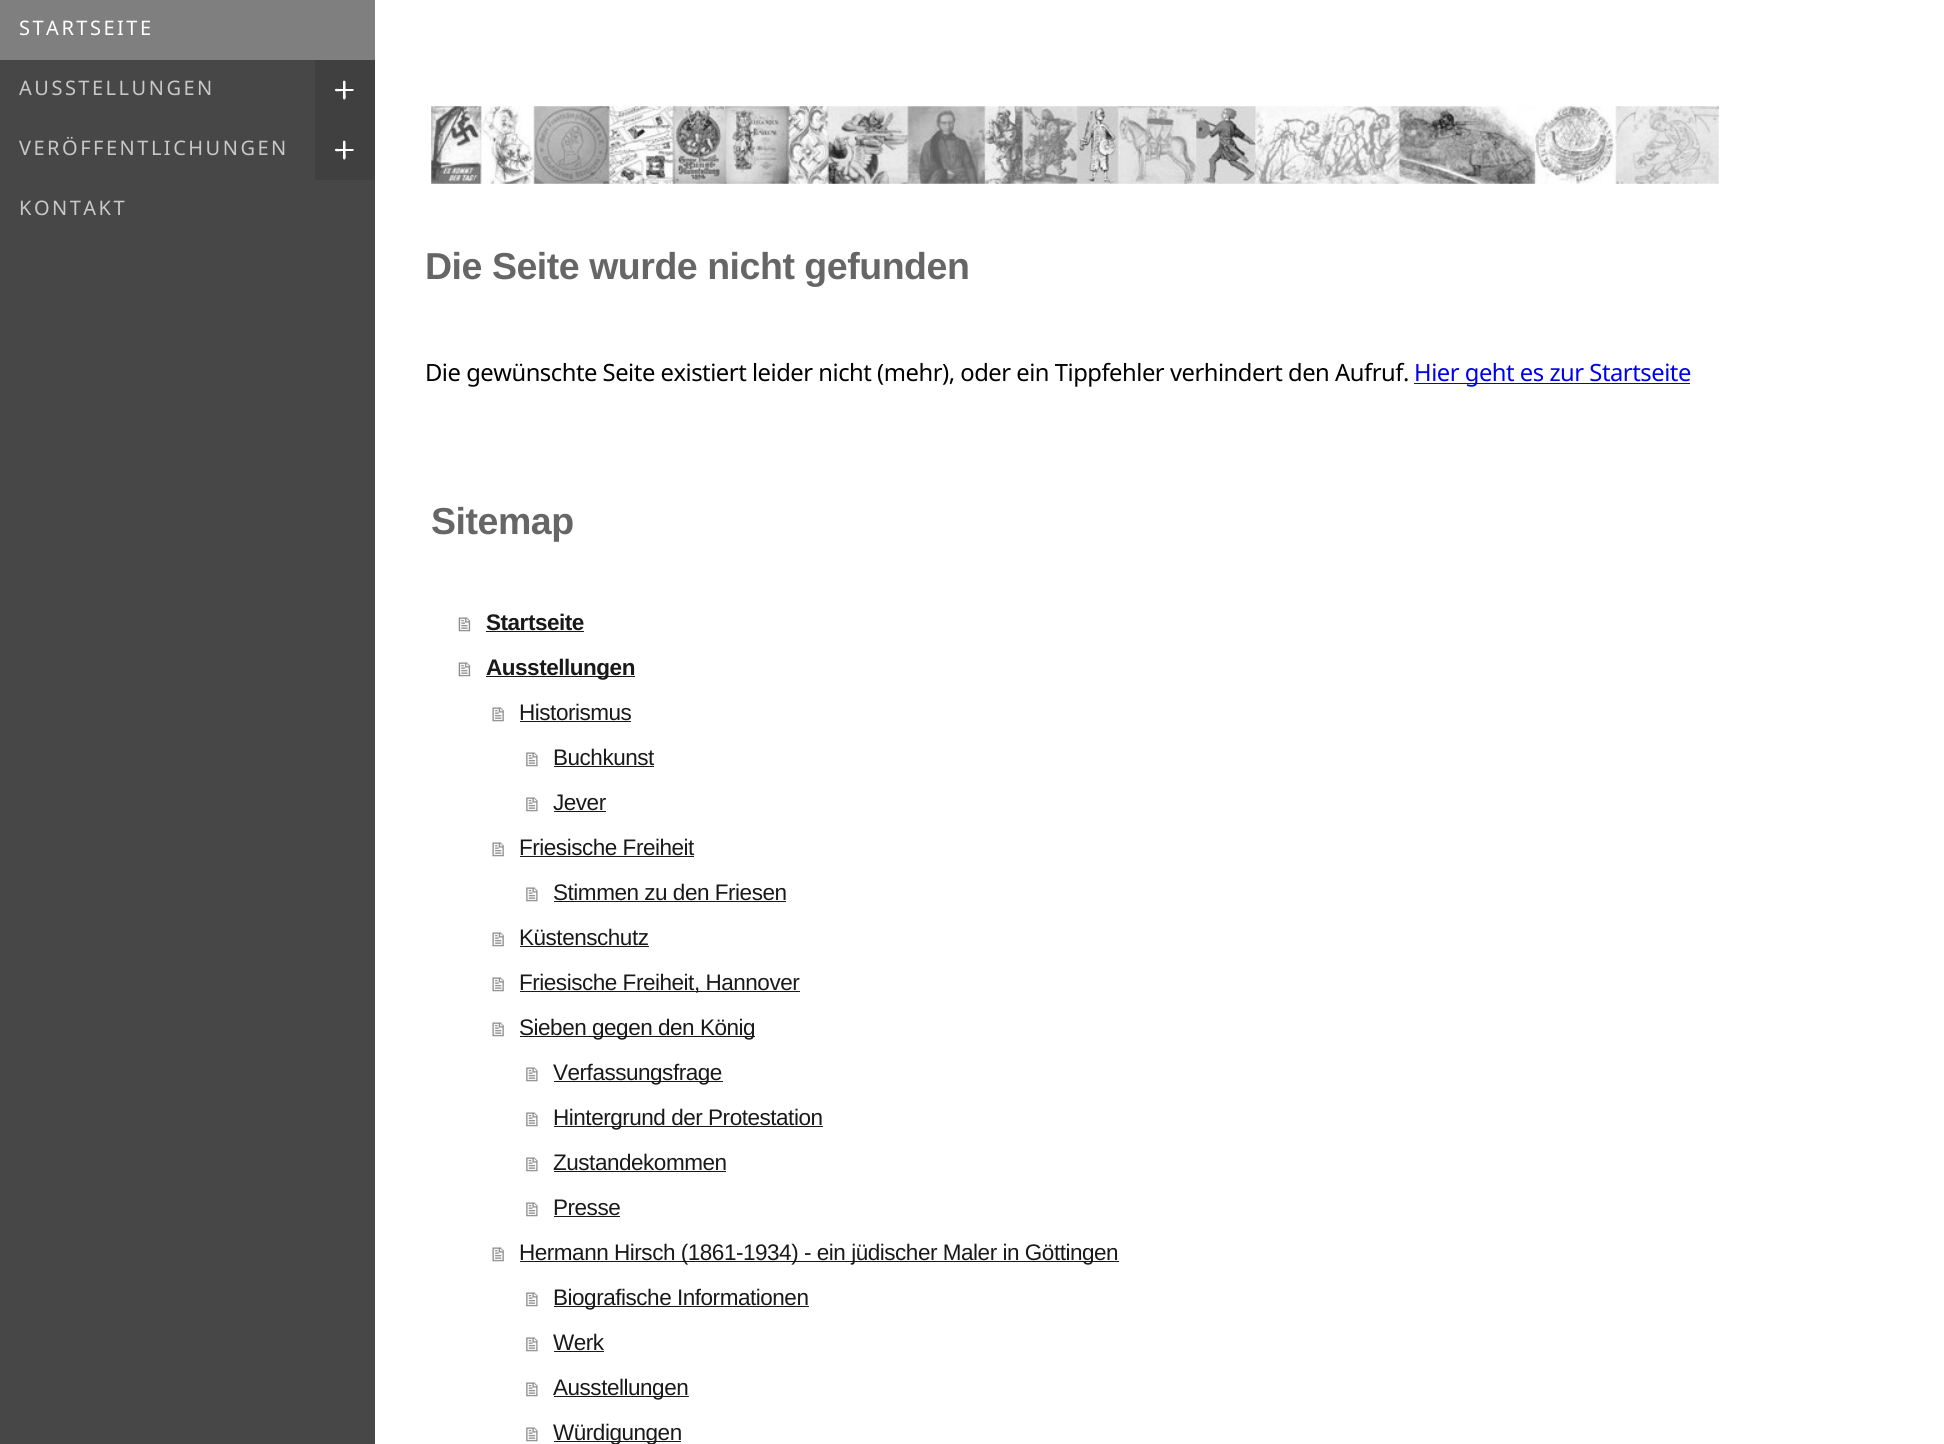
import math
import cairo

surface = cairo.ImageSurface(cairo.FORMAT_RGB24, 1944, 1444)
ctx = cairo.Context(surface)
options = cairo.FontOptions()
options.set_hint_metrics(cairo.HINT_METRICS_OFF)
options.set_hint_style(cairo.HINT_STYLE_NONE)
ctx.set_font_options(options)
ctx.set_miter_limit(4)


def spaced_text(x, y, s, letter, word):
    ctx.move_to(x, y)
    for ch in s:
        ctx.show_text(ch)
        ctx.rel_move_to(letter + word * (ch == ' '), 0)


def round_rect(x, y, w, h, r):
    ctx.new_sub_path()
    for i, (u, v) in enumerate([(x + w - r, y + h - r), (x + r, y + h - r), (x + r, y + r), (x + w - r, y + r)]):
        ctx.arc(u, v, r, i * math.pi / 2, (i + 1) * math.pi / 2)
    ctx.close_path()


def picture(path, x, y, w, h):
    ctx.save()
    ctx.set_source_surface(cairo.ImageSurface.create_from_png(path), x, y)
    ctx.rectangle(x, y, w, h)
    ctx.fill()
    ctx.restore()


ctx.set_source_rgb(1, 1, 1)
ctx.paint()
ctx.set_source_rgb(0.278, 0.278, 0.278)
ctx.rectangle(0, 60, 375, 1384)
ctx.fill()
ctx.set_source_rgb(0.498, 0.498, 0.498)
ctx.rectangle(0, 0, 375, 60)
ctx.fill()
ctx.select_font_face("Noto Sans")
ctx.set_font_size(20)
ctx.set_source_rgb(1, 1, 1)
spaced_text(19, 35, "STARTSEITE", 2.5, 0)
ctx.set_source_rgb(0.784, 0.784, 0.784)
spaced_text(19, 95, "AUSSTELLUNGEN", 2.5, 0)
ctx.set_source_rgb(0.251, 0.251, 0.251)
round_rect(315, 60, 60, 60, 1)
ctx.fill()
ctx.set_source_rgb(1, 1, 1)
ctx.new_path()
ctx.move_to(352.5, 91)
ctx.line_to(341.5, 91)
ctx.curve_to(340.5, 91, 335.5, 92, 335, 90.5)
ctx.curve_to(334.5, 88, 338, 89, 339, 89)
ctx.line_to(353, 89)
ctx.curve_to(354, 89, 354, 91, 352.5, 91)
ctx.close_path()
ctx.fill()
ctx.new_path()
ctx.move_to(345.5, 82)
ctx.line_to(345.5, 92.5)
ctx.curve_to(345.5, 94, 346.5, 99, 344.5, 99.5)
ctx.curve_to(342.5, 100, 343, 96, 343, 95.5)
ctx.line_to(343, 81.5)
ctx.curve_to(343.5, 80, 345.5, 80.5, 345.5, 82)
ctx.close_path()
ctx.fill()
ctx.set_source_rgb(0.784, 0.784, 0.784)
spaced_text(19, 155, "VERÖFFENTLICHUNGEN", 2.5, 0)
ctx.set_source_rgb(0.251, 0.251, 0.251)
round_rect(315, 120, 60, 60, 1)
ctx.fill()
ctx.set_source_rgb(1, 1, 1)
ctx.new_path()
ctx.move_to(352.5, 151)
ctx.line_to(341.5, 151)
ctx.curve_to(340.5, 151, 335.5, 152, 335, 150.5)
ctx.curve_to(334.5, 148, 338, 149, 339, 149)
ctx.line_to(353, 149)
ctx.curve_to(354, 149, 354, 151, 352.5, 151)
ctx.close_path()
ctx.fill()
ctx.new_path()
ctx.move_to(345.5, 142)
ctx.line_to(345.5, 152.5)
ctx.curve_to(345.5, 154, 346.5, 159, 344.5, 159.5)
ctx.curve_to(342.5, 160, 343, 156, 343, 155.5)
ctx.line_to(343, 141.5)
ctx.curve_to(343.5, 140, 345.5, 140.5, 345.5, 142)
ctx.close_path()
ctx.fill()
ctx.set_source_rgb(0.784, 0.784, 0.784)
spaced_text(19, 215, "KONTAKT", 2.5, 0)
picture("img1.png", 431, 106, 1288, 78)
ctx.select_font_face("Liberation Sans", cairo.FONT_SLANT_NORMAL, cairo.FONT_WEIGHT_BOLD)
ctx.set_font_size(37.5)
ctx.set_source_rgb(0.4, 0.4, 0.4)
spaced_text(425, 279, "Die Seite wurde nicht gefunden", -0.47, 0)
ctx.select_font_face("Noto Sans")
ctx.set_font_size(23.75)
ctx.set_source_rgb(0, 0, 0)
spaced_text(425, 381, "Die gewünschte Seite existiert leider nicht (mehr), oder ein Tippfehler verhindert den Aufruf.", -0.47, 0)
ctx.set_source_rgb(0, 0, 0.933)
ctx.rectangle(1414, 383, 276, 1)
ctx.fill()
spaced_text(1414, 381, "Hier geht es zur Startseite", -0.47, 0)
ctx.select_font_face("Liberation Sans", cairo.FONT_SLANT_NORMAL, cairo.FONT_WEIGHT_BOLD)
ctx.set_font_size(37.5)
ctx.set_source_rgb(0.4, 0.4, 0.4)
spaced_text(431, 534, "Sitemap", -0.47, 0)
picture("img2.png", 458, 617, 13, 15)
ctx.set_font_size(22.5)
ctx.set_source_rgb(0.098, 0.098, 0.098)
spaced_text(486, 630, "Startseite", -0.47, 0)
ctx.rectangle(486, 631, 98, 1)
ctx.fill()
picture("img2.png", 458, 662, 13, 15)
ctx.rectangle(486, 676, 149, 1)
ctx.fill()
spaced_text(486, 675, "Ausstellungen", -0.47, 0)
picture("img3.png", 492, 707, 12, 15)
ctx.select_font_face("Liberation Sans")
spaced_text(519, 720, "Historismus", -0.47, 0)
ctx.rectangle(520, 721, 111, 1)
ctx.fill()
picture("img4.png", 526, 752, 12, 15)
spaced_text(553, 765, "Buchkunst", -0.47, 0)
ctx.rectangle(554, 766, 100, 1)
ctx.fill()
picture("img4.png", 526, 797, 12, 15)
spaced_text(553, 810, "Jever", -0.47, 0)
ctx.rectangle(554, 811, 52, 1)
ctx.fill()
picture("img3.png", 492, 842, 12, 15)
spaced_text(519, 855, "Friesische Freiheit", -0.47, 0)
ctx.rectangle(520, 856, 174, 1)
ctx.fill()
picture("img4.png", 526, 887, 12, 15)
spaced_text(553, 900, "Stimmen zu den Friesen", -0.47, 0)
ctx.rectangle(554, 901, 232, 1)
ctx.fill()
picture("img3.png", 492, 932, 12, 15)
spaced_text(519, 945, "Küstenschutz", -0.47, 0)
ctx.rectangle(520, 946, 129, 1)
ctx.fill()
picture("img3.png", 492, 977, 12, 15)
ctx.rectangle(520, 991, 280, 1)
ctx.fill()
spaced_text(519, 990, "Friesische Freiheit, Hannover", -0.47, 0)
picture("img3.png", 492, 1022, 12, 15)
ctx.rectangle(520, 1036, 235, 1)
ctx.fill()
spaced_text(519, 1035, "Sieben gegen den König", -0.47, 0)
picture("img4.png", 526, 1067, 12, 15)
ctx.rectangle(554, 1081, 169, 1)
ctx.fill()
spaced_text(553, 1080, "Verfassungsfrage", -0.47, 0)
picture("img4.png", 526, 1112, 12, 15)
ctx.rectangle(554, 1126, 269, 1)
ctx.fill()
spaced_text(553, 1125, "Hintergrund der Protestation", -0.47, 0)
picture("img4.png", 526, 1157, 12, 15)
spaced_text(553, 1170, "Zustandekommen", -0.47, 0)
ctx.rectangle(554, 1171, 172, 1)
ctx.fill()
picture("img4.png", 526, 1202, 12, 15)
spaced_text(553, 1215, "Presse", -0.47, 0)
ctx.rectangle(554, 1216, 66, 1)
ctx.fill()
picture("img3.png", 492, 1247, 12, 15)
ctx.rectangle(520, 1261, 599, 1)
ctx.fill()
spaced_text(519, 1260, "Hermann Hirsch (1861-1934) - ein jüdischer Maler in Göttingen", -0.47, 0)
picture("img4.png", 526, 1292, 12, 15)
ctx.rectangle(554, 1306, 255, 1)
ctx.fill()
spaced_text(553, 1305, "Biografische Informationen", -0.47, 0)
picture("img4.png", 526, 1337, 12, 15)
spaced_text(553, 1350, "Werk", -0.47, 0)
ctx.rectangle(554, 1351, 50, 1)
ctx.fill()
picture("img4.png", 526, 1382, 12, 15)
ctx.rectangle(554, 1396, 135, 1)
ctx.fill()
spaced_text(553, 1395, "Ausstellungen", -0.47, 0)
picture("img4.png", 526, 1427, 12, 15)
ctx.rectangle(554, 1441, 127, 1)
ctx.fill()
spaced_text(553, 1440, "Würdigungen", -0.47, 0)
surface.write_to_png("page.png")
